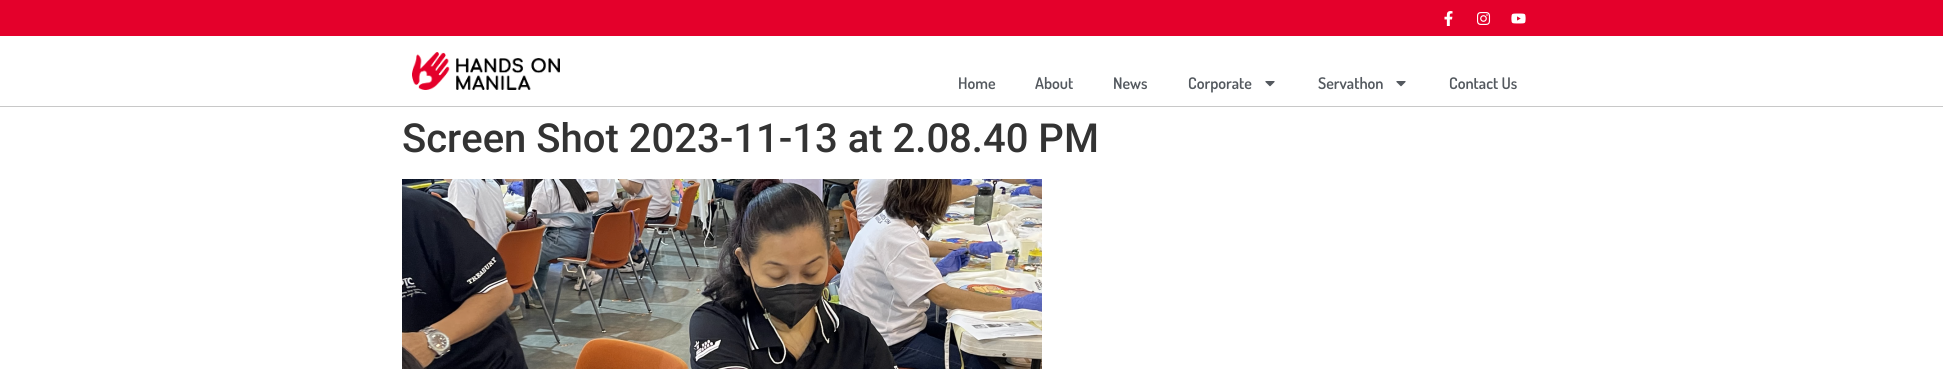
import math
import cairo

surface = cairo.ImageSurface(cairo.FORMAT_RGB24, 1943, 369)
ctx = cairo.Context(surface)
options = cairo.FontOptions()
options.set_hint_metrics(cairo.HINT_METRICS_OFF)
options.set_hint_style(cairo.HINT_STYLE_NONE)
ctx.set_font_options(options)
ctx.set_miter_limit(4)


def picture(path, x, y, w, h):
    ctx.save()
    ctx.set_source_surface(cairo.ImageSurface.create_from_png(path), x, y)
    ctx.rectangle(x, y, w, h)
    ctx.fill()
    ctx.restore()


ctx.set_source_rgb(1, 1, 1)
ctx.paint()
ctx.set_source_rgb(0.894, 0, 0.169)
ctx.rectangle(0, 0, 1943, 36)
ctx.fill()
picture("img1.png", 1444, 11, 9, 15)
picture("img2.png", 1477, 12, 14, 13)
picture("img3.png", 1511, 13, 15, 11)
ctx.set_source_rgb(0.784, 0.784, 0.784)
ctx.rectangle(0, 106, 1943, 1)
ctx.fill()
picture("img4.png", 412, 52, 148, 38)
ctx.select_font_face("Dosis SemiBold")
ctx.set_font_size(16)
ctx.set_source_rgb(0.329, 0.349, 0.373)
ctx.move_to(958, 89)
ctx.show_text("Home")
ctx.move_to(1035, 89)
ctx.show_text("About")
ctx.move_to(1113, 89)
ctx.show_text("News")
ctx.move_to(1188, 89)
ctx.show_text("Corporate")
picture("img5.png", 1265, 81, 10, 6)
ctx.move_to(1318, 89)
ctx.show_text("Servathon")
picture("img5.png", 1396, 81, 10, 6)
ctx.move_to(1449, 89)
ctx.show_text("Contact Us")
ctx.select_font_face("Roboto Medium")
ctx.set_font_size(40)
ctx.set_source_rgb(0.2, 0.2, 0.2)
ctx.move_to(402, 152)
ctx.show_text("Screen Shot 2023-11-13 at 2.08.40 PM")
picture("img6.png", 402, 179, 640, 190)
surface.write_to_png("page.png")
